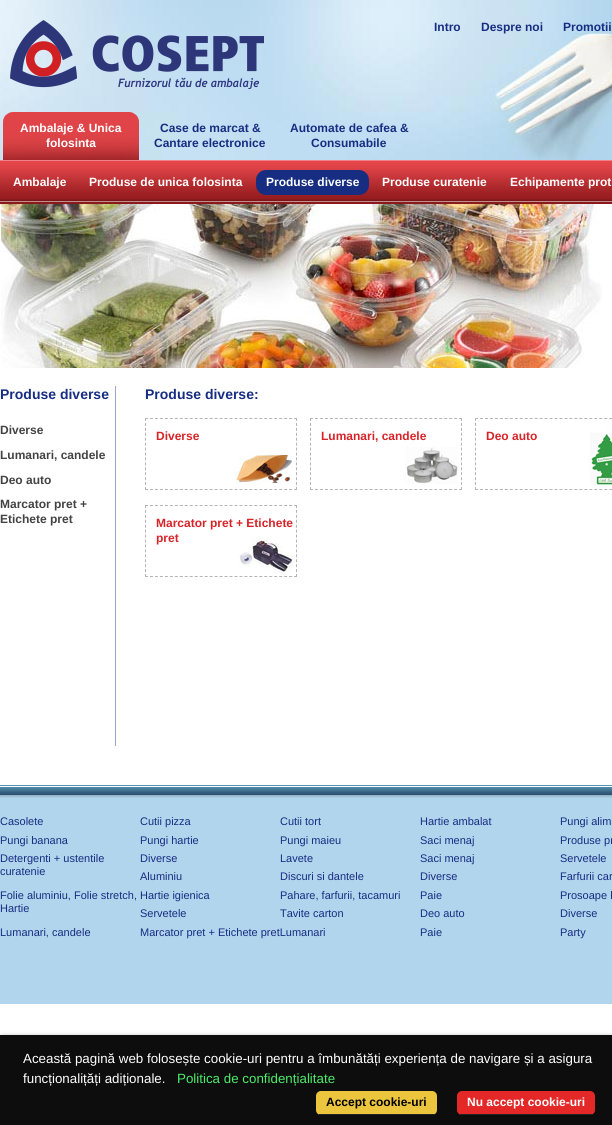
import math
import cairo

surface = cairo.ImageSurface(cairo.FORMAT_RGB24, 612, 1125)
ctx = cairo.Context(surface)
options = cairo.FontOptions()
options.set_hint_metrics(cairo.HINT_METRICS_OFF)
options.set_hint_style(cairo.HINT_STYLE_NONE)
ctx.set_font_options(options)
ctx.set_miter_limit(4)


def round_rect(x, y, w, h, r):
    ctx.new_sub_path()
    for i, (u, v) in enumerate([(x + w - r, y + h - r), (x + r, y + h - r), (x + r, y + r), (x + w - r, y + r)]):
        ctx.arc(u, v, r, i * math.pi / 2, (i + 1) * math.pi / 2)
    ctx.close_path()


def shadow(x, y, w, h, r, blur, alpha):
    ctx.push_group_with_content(cairo.CONTENT_ALPHA)
    ctx.set_operator(cairo.OPERATOR_SOURCE)
    for i in range(15, -16, -2):
        e = blur * i / 6
        if min(w, h) + 2 * e > 0:
            ctx.set_source_rgba(0, 0, 0, alpha * math.erfc((i - 1) / 8.5) / 2)
            round_rect(x - e, y - e, w + 2 * e, h + 2 * e, max(0, min(r + e + blur * .6, min(w, h) / 2 + e)))
            ctx.fill()
    ctx.mask(ctx.pop_group())


def picture(path, x, y, w, h):
    ctx.save()
    ctx.set_source_surface(cairo.ImageSurface.create_from_png(path), x, y)
    ctx.rectangle(x, y, w, h)
    ctx.fill()
    ctx.restore()


ctx.set_source_rgb(1, 1, 1)
ctx.paint()
picture("img1.png", 0, 0, 612, 160)
picture("img2.png", 10, 20, 254, 69)
ctx.select_font_face("Liberation Sans", cairo.FONT_SLANT_NORMAL, cairo.FONT_WEIGHT_BOLD)
ctx.set_font_size(12)
ctx.set_source_rgb(0.086, 0.176, 0.51)
ctx.move_to(434, 31)
ctx.show_text("Intro")
ctx.move_to(481, 31)
ctx.show_text("Despre noi")
ctx.move_to(563, 31)
ctx.show_text("Promotii")
picture("img3.png", 3, 112, 136, 48)
ctx.set_source_rgb(1, 1, 1)
ctx.move_to(20, 132)
ctx.show_text("Ambalaje & Unica")
ctx.move_to(46, 147)
ctx.show_text("folosinta")
ctx.set_source_rgb(0.086, 0.176, 0.51)
ctx.move_to(160, 132)
ctx.show_text("Case de marcat &")
ctx.move_to(154, 147)
ctx.show_text("Cantare electronice")
ctx.move_to(290, 132)
ctx.show_text("Automate de cafea &")
ctx.move_to(311, 147)
ctx.show_text("Consumabile")
ctx.set_source_rgb(0.537, 0.102, 0.11)
ctx.rectangle(0, 202, 612, 2)
ctx.fill()
picture("img4.png", 0, 160, 612, 42)
ctx.set_source_rgb(1, 1, 1)
ctx.move_to(13, 186)
ctx.show_text("Ambalaje")
ctx.move_to(89, 186)
ctx.show_text("Produse de unica folosinta")
ctx.set_source_rgb(0.086, 0.176, 0.51)
round_rect(256, 170, 113, 25, 10)
ctx.fill()
ctx.set_source_rgb(1, 1, 1)
ctx.move_to(266, 186)
ctx.show_text("Produse diverse")
ctx.move_to(382, 186)
ctx.show_text("Produse curatenie")
ctx.move_to(510, 186)
ctx.show_text("Echipamente prot")
picture("img5.png", 0, 204, 602, 164)
ctx.set_source_rgb(0.616, 0.655, 0.796)
ctx.rectangle(115, 386, 1, 360)
ctx.fill()
ctx.set_font_size(14)
ctx.set_source_rgb(0.086, 0.176, 0.51)
ctx.move_to(0, 399)
ctx.show_text("Produse diverse")
ctx.set_font_size(12)
ctx.set_source_rgb(0.263, 0.263, 0.263)
ctx.move_to(0, 434)
ctx.show_text("Diverse")
ctx.move_to(0, 459)
ctx.show_text("Lumanari, candele")
ctx.move_to(0, 484)
ctx.show_text("Deo auto")
ctx.move_to(0, 508)
ctx.show_text("Marcator pret +")
ctx.move_to(0, 523)
ctx.show_text("Etichete pret")
ctx.set_font_size(14)
ctx.set_source_rgb(0.086, 0.176, 0.51)
ctx.move_to(145, 399)
ctx.show_text("Produse diverse:")
ctx.new_path()
ctx.move_to(145, 418.5)
ctx.line_to(297, 418.5)
ctx.set_source_rgb(0.71, 0.71, 0.71)
ctx.set_line_width(1)
ctx.set_dash([3, 1.97])
ctx.stroke()
ctx.new_path()
ctx.move_to(296.5, 418)
ctx.line_to(296.5, 490)
ctx.set_dash([3, 1.93])
ctx.stroke()
ctx.new_path()
ctx.move_to(145, 489.5)
ctx.line_to(297, 489.5)
ctx.set_dash([3, 1.97])
ctx.stroke()
ctx.new_path()
ctx.move_to(145.5, 418)
ctx.line_to(145.5, 490)
ctx.set_dash([3, 1.93])
ctx.stroke()
ctx.set_font_size(12)
ctx.set_source_rgb(0.843, 0.141, 0.157)
ctx.move_to(156, 440)
ctx.show_text("Diverse")
picture("img6.png", 234, 451, 60, 32)
ctx.new_path()
ctx.move_to(310, 418.5)
ctx.line_to(462, 418.5)
ctx.set_source_rgb(0.71, 0.71, 0.71)
ctx.set_dash([3, 1.97])
ctx.stroke()
ctx.new_path()
ctx.move_to(461.5, 418)
ctx.line_to(461.5, 490)
ctx.set_dash([3, 1.93])
ctx.stroke()
ctx.new_path()
ctx.move_to(310, 489.5)
ctx.line_to(462, 489.5)
ctx.set_dash([3, 1.97])
ctx.stroke()
ctx.new_path()
ctx.move_to(310.5, 418)
ctx.line_to(310.5, 490)
ctx.set_dash([3, 1.93])
ctx.stroke()
ctx.set_source_rgb(0.843, 0.141, 0.157)
ctx.move_to(321, 440)
ctx.show_text("Lumanari, candele")
picture("img7.png", 405, 447, 53, 37)
ctx.new_path()
ctx.move_to(475, 418.5)
ctx.line_to(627, 418.5)
ctx.set_source_rgb(0.71, 0.71, 0.71)
ctx.set_dash([3, 1.97])
ctx.stroke()
ctx.new_path()
ctx.move_to(475, 489.5)
ctx.line_to(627, 489.5)
ctx.stroke()
ctx.new_path()
ctx.move_to(475.5, 418)
ctx.line_to(475.5, 490)
ctx.set_dash([3, 1.93])
ctx.stroke()
ctx.set_source_rgb(0.843, 0.141, 0.157)
ctx.move_to(486, 440)
ctx.show_text("Deo auto")
picture("img8.png", 588, 427, 24, 62)
ctx.new_path()
ctx.move_to(145, 505.5)
ctx.line_to(297, 505.5)
ctx.set_source_rgb(0.71, 0.71, 0.71)
ctx.set_dash([3, 1.97])
ctx.stroke()
ctx.new_path()
ctx.move_to(296.5, 505)
ctx.line_to(296.5, 577)
ctx.set_dash([3, 1.93])
ctx.stroke()
ctx.new_path()
ctx.move_to(145, 576.5)
ctx.line_to(297, 576.5)
ctx.set_dash([3, 1.97])
ctx.stroke()
ctx.new_path()
ctx.move_to(145.5, 505)
ctx.line_to(145.5, 577)
ctx.set_dash([3, 1.93])
ctx.stroke()
ctx.set_source_rgb(0.843, 0.141, 0.157)
ctx.move_to(156, 527)
ctx.show_text("Marcator pret + Etichete")
ctx.move_to(156, 542)
ctx.show_text("pret")
picture("img9.png", 238, 536, 56, 37)
ctx.set_source_rgb(0.69, 0.835, 0.929)
ctx.rectangle(0, 798, 612, 206)
ctx.fill()
picture("img10.png", 0, 785, 612, 13)
ctx.select_font_face("Liberation Sans")
ctx.set_font_size(11)
ctx.set_source_rgb(0.086, 0.176, 0.51)
ctx.move_to(0, 825)
ctx.show_text("Casolete")
ctx.move_to(140, 825)
ctx.show_text("Cutii pizza")
ctx.move_to(280, 825)
ctx.show_text("Cutii tort")
ctx.move_to(420, 825)
ctx.show_text("Hartie ambalat")
ctx.move_to(560, 825)
ctx.show_text("Pungi alim")
ctx.move_to(0, 844)
ctx.show_text("Pungi banana")
ctx.move_to(140, 844)
ctx.show_text("Pungi hartie")
ctx.move_to(280, 844)
ctx.show_text("Pungi maieu")
ctx.move_to(420, 844)
ctx.show_text("Saci menaj")
ctx.move_to(560, 844)
ctx.show_text("Produse pr")
ctx.move_to(0, 862)
ctx.show_text("Detergenti + ustentile")
ctx.move_to(0, 875)
ctx.show_text("curatenie")
ctx.move_to(140, 862)
ctx.show_text("Diverse")
ctx.move_to(280, 862)
ctx.show_text("Lavete")
ctx.move_to(420, 862)
ctx.show_text("Saci menaj")
ctx.move_to(560, 862)
ctx.show_text("Servetele")
ctx.move_to(140, 880)
ctx.show_text("Aluminiu")
ctx.move_to(280, 880)
ctx.show_text("Discuri si dantele")
ctx.move_to(420, 880)
ctx.show_text("Diverse")
ctx.move_to(560, 880)
ctx.show_text("Farfurii car")
ctx.move_to(0, 899)
ctx.show_text("Folie aluminiu, Folie stretch, Hartie igienica")
ctx.move_to(0, 912)
ctx.show_text("Hartie")
ctx.move_to(280, 899)
ctx.show_text("Pahare, farfurii, tacamuri")
ctx.move_to(420, 899)
ctx.show_text("Paie")
ctx.move_to(560, 899)
ctx.show_text("Prosoape h")
ctx.move_to(140, 917)
ctx.show_text("Servetele")
ctx.move_to(280, 917)
ctx.show_text("Tavite carton")
ctx.move_to(420, 917)
ctx.show_text("Deo auto")
ctx.move_to(560, 917)
ctx.show_text("Diverse")
ctx.move_to(0, 936)
ctx.show_text("Lumanari, candele")
ctx.move_to(140, 936)
ctx.show_text("Marcator pret + Etichete pretLumanari")
ctx.move_to(420, 936)
ctx.show_text("Paie")
ctx.move_to(560, 936)
ctx.show_text("Party")
ctx.set_source_rgb(0, 0, 0)
shadow(2, 1037, 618, 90, 0, 2.5, 0.6)
ctx.set_source_rgb(0.051, 0.051, 0.051)
ctx.rectangle(0, 1035, 612, 90)
ctx.fill()
ctx.set_font_size(13.35)
ctx.set_source_rgb(1, 1, 1)
ctx.move_to(23, 1063)
ctx.show_text("Această pagină web folosește cookie-uri pentru a îmbunătăți experiența de navigare și a asigura")
ctx.move_to(23, 1083)
ctx.show_text("funcționalițăți adiționale.")
ctx.set_source_rgb(0.294, 0.925, 0.412)
ctx.move_to(177, 1083)
ctx.show_text("Politica de confidențialitate")
ctx.set_source_rgb(0.918, 0.773, 0.243)
round_rect(316, 1091, 121, 24, 5)
ctx.fill()
ctx.set_source_rgb(0.133, 0.133, 0.133)
ctx.rectangle(319, 1114, 116, 1)
ctx.fill()
ctx.select_font_face("Liberation Sans", cairo.FONT_SLANT_NORMAL, cairo.FONT_WEIGHT_BOLD)
ctx.set_font_size(12)
ctx.set_source_rgb(0, 0, 0)
ctx.move_to(326, 1106)
ctx.show_text("Accept cookie-uri")
ctx.set_source_rgb(0.894, 0.157, 0.157)
round_rect(457, 1091, 138, 24, 5)
ctx.fill()
ctx.set_source_rgb(0.133, 0.133, 0.133)
ctx.rectangle(460, 1114, 133, 1)
ctx.fill()
ctx.set_source_rgb(1, 1, 1)
ctx.move_to(467, 1106)
ctx.show_text("Nu accept cookie-uri")
surface.write_to_png("page.png")
